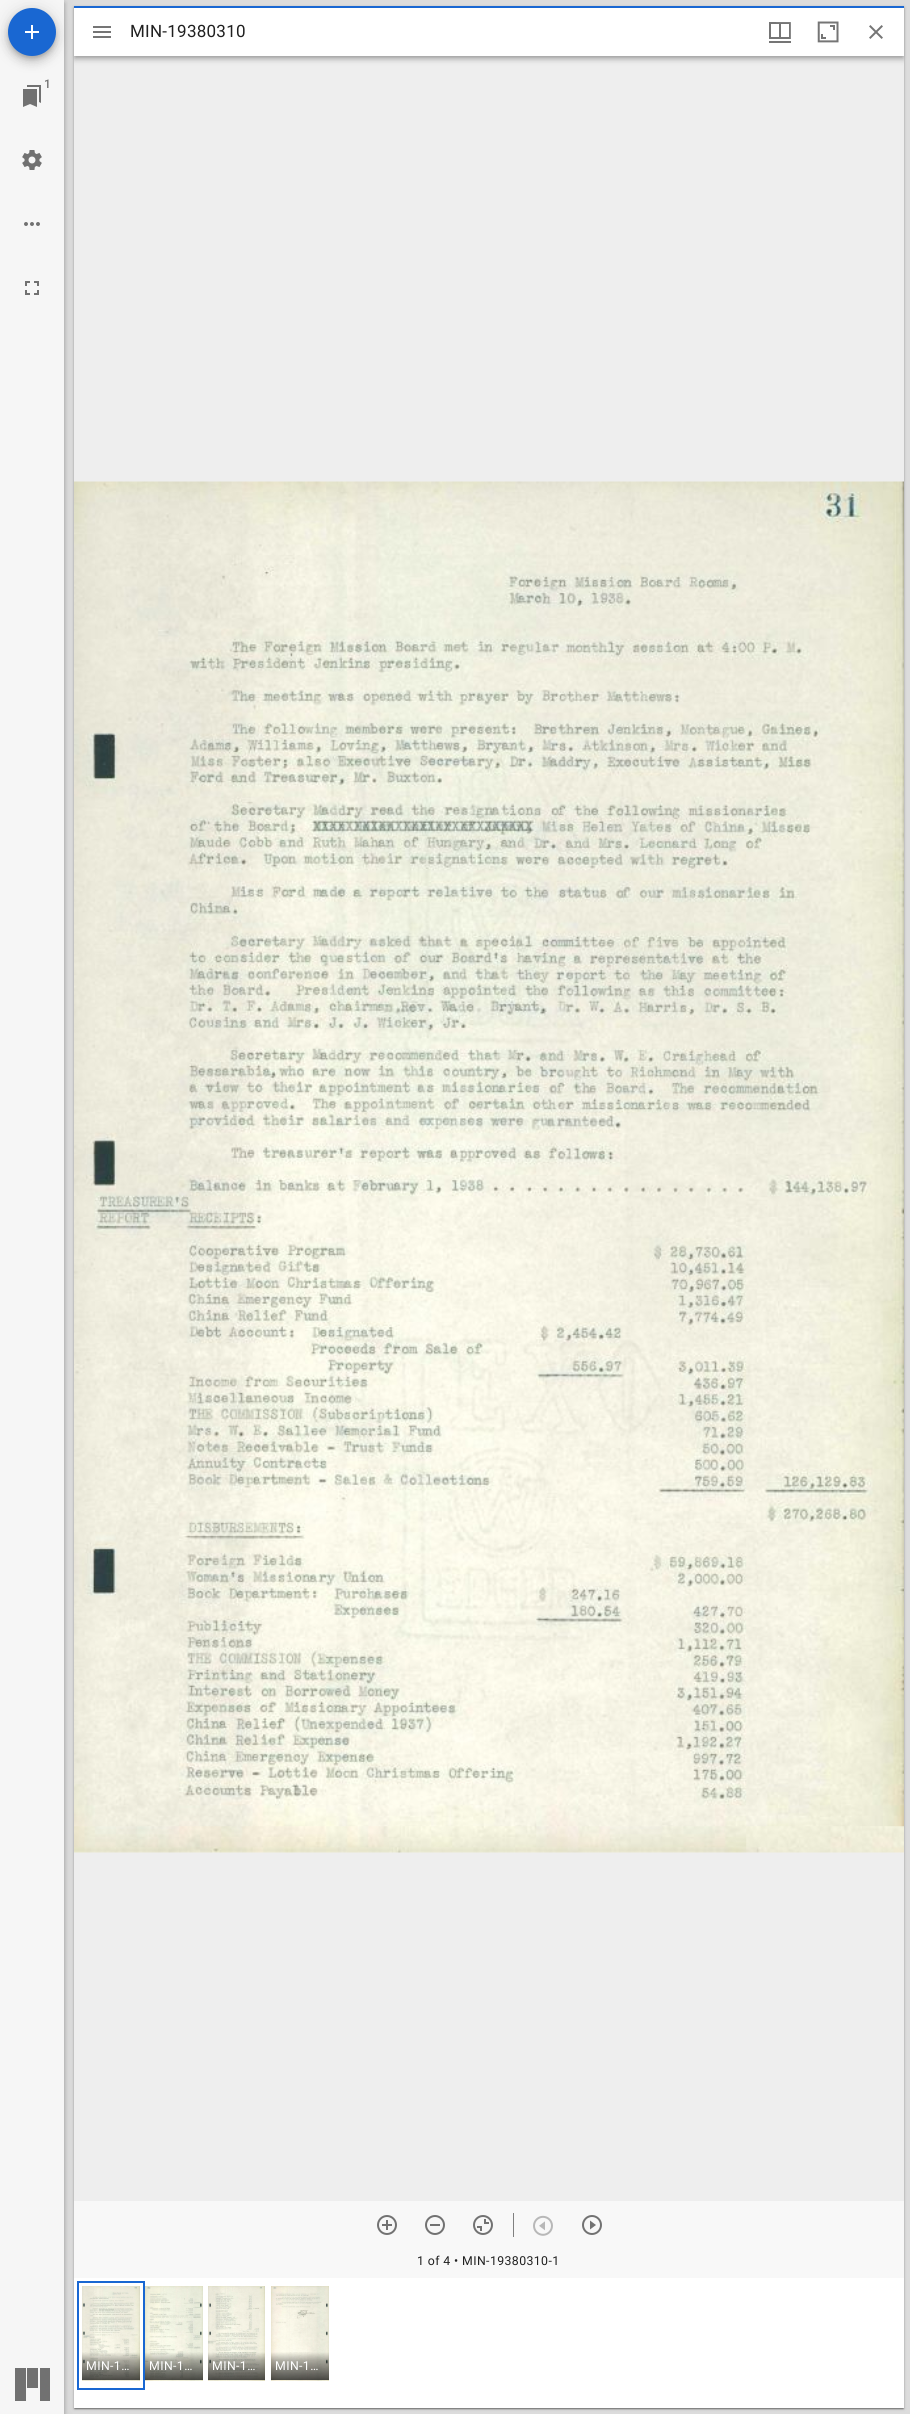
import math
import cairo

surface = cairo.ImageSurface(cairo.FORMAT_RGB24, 910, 2414)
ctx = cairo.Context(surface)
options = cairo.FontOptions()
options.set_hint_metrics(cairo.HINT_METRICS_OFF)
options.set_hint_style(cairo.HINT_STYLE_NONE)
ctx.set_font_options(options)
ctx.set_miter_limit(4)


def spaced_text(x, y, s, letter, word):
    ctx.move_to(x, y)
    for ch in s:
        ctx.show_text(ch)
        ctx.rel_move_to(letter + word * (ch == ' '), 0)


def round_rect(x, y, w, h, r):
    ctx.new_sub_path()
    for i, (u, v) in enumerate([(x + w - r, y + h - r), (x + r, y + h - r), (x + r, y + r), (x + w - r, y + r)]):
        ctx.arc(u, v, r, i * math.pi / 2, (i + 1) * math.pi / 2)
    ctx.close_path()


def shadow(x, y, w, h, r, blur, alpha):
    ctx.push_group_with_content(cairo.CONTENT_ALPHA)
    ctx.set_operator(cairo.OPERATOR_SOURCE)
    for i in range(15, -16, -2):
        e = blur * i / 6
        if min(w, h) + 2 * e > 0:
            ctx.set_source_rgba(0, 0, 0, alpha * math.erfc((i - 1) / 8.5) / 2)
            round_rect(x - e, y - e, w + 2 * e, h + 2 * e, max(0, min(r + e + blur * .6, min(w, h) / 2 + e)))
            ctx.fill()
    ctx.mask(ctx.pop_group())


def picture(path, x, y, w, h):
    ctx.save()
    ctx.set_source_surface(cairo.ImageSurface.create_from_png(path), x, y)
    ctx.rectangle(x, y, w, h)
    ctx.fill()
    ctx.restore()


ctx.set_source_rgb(0.863, 0.863, 0.863)
ctx.paint()
ctx.set_source_rgb(0, 0, 0)
shadow(75, 9, 828, 2400, 0, 0.5, 0.2)
shadow(74, 7, 830, 2402, 0, 0.5, 0.2)
shadow(74, 7, 830, 2402, 0, 1.5, 0.2)
ctx.set_source_rgb(0.933, 0.933, 0.933)
ctx.rectangle(74, 56, 830, 2145)
ctx.fill()
ctx.save()
ctx.rectangle(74, 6, 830, 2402)
ctx.clip()
ctx.set_source_rgb(0, 0, 0)
shadow(74, 7, 830, 50, 0, 5, 0.12)
shadow(74, 10, 830, 50, 0, 2.5, 0.14)
ctx.restore()
ctx.set_source_rgb(0, 0, 0)
shadow(75, 9, 828, 48, 0, 2, 0.2)
ctx.set_source_rgb(1, 1, 1)
ctx.rectangle(74, 8, 830, 48)
ctx.fill()
ctx.set_source_rgb(0.098, 0.404, 0.824)
ctx.rectangle(74, 6, 830, 2)
ctx.fill()
picture("img10.png", 74, 481, 830, 1372)
ctx.set_source_rgb(0.969, 0.969, 0.969)
ctx.rectangle(74, 2201, 830, 77)
ctx.fill()
ctx.set_source_rgb(1, 1, 1)
ctx.rectangle(74, 2278, 830, 130)
ctx.fill()
ctx.rectangle(78, 2282, 66, 107)
ctx.set_source_rgb(0.098, 0.404, 0.824)
ctx.stroke()
ctx.set_source_rgb(0, 0, 0)
shadow(0, 1, 64, 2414, 0, 5, 0.12)
shadow(0, 4, 64, 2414, 0, 2.5, 0.14)
shadow(1, 3, 62, 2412, 0, 2, 0.2)
ctx.set_source_rgb(0.961, 0.961, 0.961)
ctx.rectangle(0, 0, 64, 2414)
ctx.fill()
ctx.set_source_rgb(0, 0, 0)
shadow(8, 9, 48, 48, 24, 9, 0.12)
shadow(8, 14, 48, 48, 24, 5, 0.14)
shadow(9, 12, 46, 46, 23, 2.5, 0.2)
ctx.set_source_rgb(0.098, 0.404, 0.824)
ctx.arc(32, 32, 24, 0, 2 * math.pi)
ctx.fill()
picture("img1.png", 25, 25, 14, 14)
ctx.select_font_face("Roboto Medium")
ctx.set_font_size(12)
ctx.set_source_rgb(0.443, 0.443, 0.443)
ctx.move_to(44, 88)
ctx.show_text("1")
picture("img2.png", 23, 85, 18, 22)
picture("img3.png", 22, 150, 20, 20)
picture("img4.png", 24, 222, 16, 4)
picture("img5.png", 25, 281, 14, 14)
ctx.rectangle(15, 2368, 11, 33)
ctx.fill()
ctx.rectangle(40, 2368, 10, 33)
ctx.fill()
ctx.rectangle(27, 2368, 11, 20)
ctx.fill()
picture("img6.png", 93, 26, 18, 12)
ctx.select_font_face("Roboto")
ctx.set_font_size(17)
ctx.set_source_rgb(0.125, 0.125, 0.125)
spaced_text(130, 37, "MIN-19380310", 0.25, 0)
picture("img7.png", 769, 22, 22, 21)
picture("img8.png", 817, 21, 22, 22)
picture("img9.png", 869, 25, 14, 14)
picture("img11.png", 377, 2215, 20, 20)
picture("img12.png", 425, 2215, 20, 20)
picture("img13.png", 473, 2215, 20, 20)
ctx.set_source_rgb(0.502, 0.502, 0.502)
ctx.rectangle(513, 2213, 1, 24)
ctx.fill()
picture("img14.png", 533, 2215, 20, 21)
picture("img15.png", 582, 2215, 20, 20)
ctx.set_font_size(12.3)
ctx.set_source_rgb(0.125, 0.125, 0.125)
spaced_text(417, 2265, "1 of 4 • MIN-19380310-1", 0.4, 0)
picture("img16.png", 82, 2286, 58, 95)
ctx.set_source_rgb(1, 1, 1)
spaced_text(86, 2370, "MIN-1…", 0.4, 0)
picture("img17.png", 145, 2286, 58, 95)
spaced_text(149, 2370, "MIN-1…", 0.4, 0)
picture("img18.png", 208, 2286, 57, 95)
spaced_text(212, 2370, "MIN-1…", 0.4, 0)
picture("img19.png", 271, 2286, 58, 95)
spaced_text(275, 2370, "MIN-1…", 0.4, 0)
surface.write_to_png("page.png")
